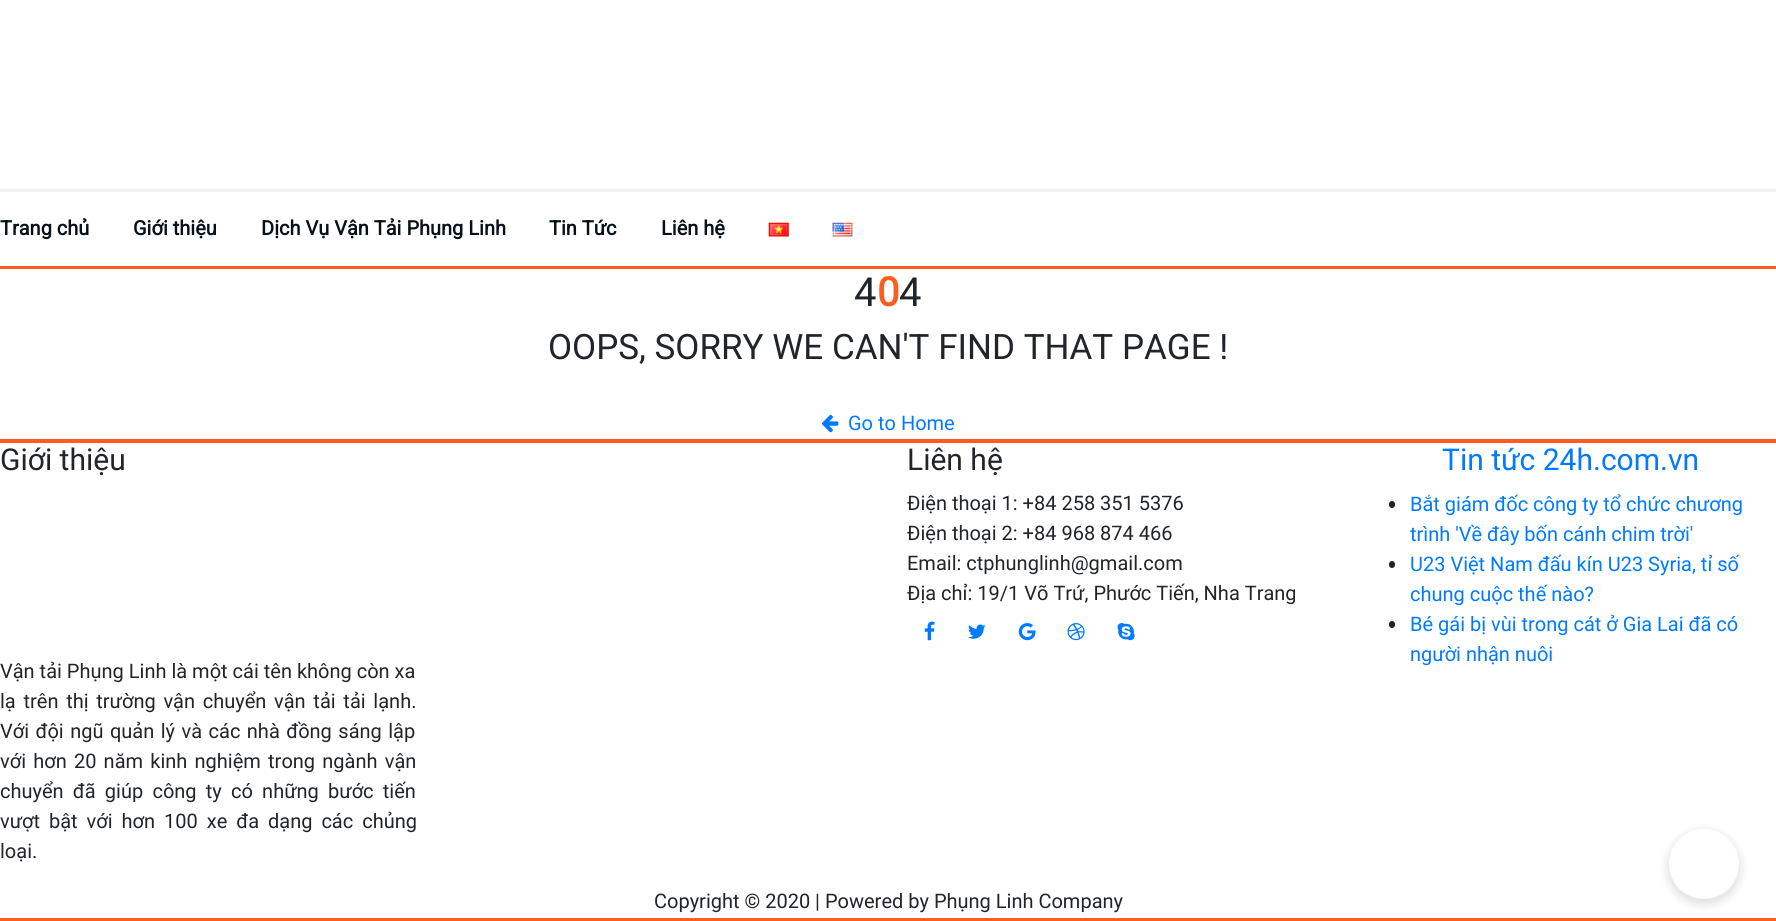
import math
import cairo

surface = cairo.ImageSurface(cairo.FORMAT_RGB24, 1776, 921)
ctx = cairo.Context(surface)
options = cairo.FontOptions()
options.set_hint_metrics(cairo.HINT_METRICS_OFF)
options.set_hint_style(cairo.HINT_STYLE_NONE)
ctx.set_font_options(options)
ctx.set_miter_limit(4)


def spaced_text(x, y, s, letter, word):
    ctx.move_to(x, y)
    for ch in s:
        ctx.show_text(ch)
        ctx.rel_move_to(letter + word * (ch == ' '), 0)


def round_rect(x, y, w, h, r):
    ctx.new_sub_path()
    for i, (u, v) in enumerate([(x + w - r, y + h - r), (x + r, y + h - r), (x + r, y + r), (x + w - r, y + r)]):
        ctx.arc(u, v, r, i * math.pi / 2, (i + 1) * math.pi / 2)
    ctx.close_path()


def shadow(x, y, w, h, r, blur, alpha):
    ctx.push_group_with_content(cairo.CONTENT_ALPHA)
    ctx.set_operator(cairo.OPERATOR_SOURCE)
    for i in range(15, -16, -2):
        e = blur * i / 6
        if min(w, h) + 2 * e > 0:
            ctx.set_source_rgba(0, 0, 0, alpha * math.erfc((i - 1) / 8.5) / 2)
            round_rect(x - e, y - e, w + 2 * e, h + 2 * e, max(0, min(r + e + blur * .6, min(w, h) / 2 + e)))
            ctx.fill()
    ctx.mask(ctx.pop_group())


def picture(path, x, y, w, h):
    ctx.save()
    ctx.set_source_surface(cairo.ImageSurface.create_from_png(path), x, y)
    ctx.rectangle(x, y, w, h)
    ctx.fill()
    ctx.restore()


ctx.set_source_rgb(1, 1, 1)
ctx.paint()
ctx.set_source_rgb(0.953, 0.949, 0.945)
ctx.rectangle(0, 189, 1776, 3)
ctx.fill()
ctx.set_source_rgb(1, 0.365, 0.125)
ctx.rectangle(0, 266, 1776, 3)
ctx.fill()
ctx.select_font_face("Roboto", cairo.FONT_SLANT_NORMAL, cairo.FONT_WEIGHT_BOLD)
ctx.set_font_size(20)
ctx.set_source_rgb(0.024, 0.063, 0.094)
ctx.move_to(0, 235)
ctx.show_text("Trang chủ")
ctx.move_to(133, 235)
ctx.show_text("Giới thiệu")
ctx.move_to(261, 235)
ctx.show_text("Dịch Vụ Vận Tải Phụng Linh")
ctx.move_to(549, 235)
ctx.show_text("Tin Tức")
ctx.move_to(661, 235)
ctx.show_text("Liên hệ")
picture("img1.png", 768, 222, 21, 15)
picture("img2.png", 832, 222, 21, 15)
ctx.select_font_face("Roboto")
ctx.set_font_size(40)
ctx.set_source_rgb(0.129, 0.145, 0.161)
ctx.move_to(854, 306)
ctx.show_text("4")
ctx.select_font_face("Roboto", cairo.FONT_SLANT_NORMAL, cairo.FONT_WEIGHT_BOLD)
ctx.set_source_rgb(1, 0.365, 0.125)
ctx.move_to(877, 306)
ctx.show_text("0")
ctx.select_font_face("Roboto")
ctx.set_source_rgb(0.129, 0.145, 0.161)
ctx.move_to(899, 306)
ctx.show_text("4")
ctx.set_font_size(35)
ctx.move_to(548, 359)
ctx.show_text("OOPS, SORRY WE CAN'T FIND THAT PAGE !")
picture("img3.png", 822, 414, 17, 19)
ctx.set_font_size(20)
ctx.set_source_rgb(0, 0.482, 1)
ctx.move_to(848, 430)
ctx.show_text("Go to Home")
ctx.set_source_rgb(1, 0.365, 0.125)
ctx.rectangle(0, 439, 1776, 4)
ctx.fill()
ctx.rectangle(0, 918, 1776, 3)
ctx.fill()
ctx.set_font_size(30)
ctx.set_source_rgb(0.129, 0.145, 0.161)
ctx.move_to(0, 470)
ctx.show_text("Giới thiệu")
ctx.set_font_size(20)
ctx.move_to(0, 678)
ctx.show_text("Vận tải Phụng Linh là một cái tên không còn xa")
spaced_text(0, 708, "lạ trên thị trường vận chuyển vận tải tải lạnh.", 0, 2.75)
spaced_text(0, 738, "Với đội ngũ quản lý và các nhà đồng sáng lập", 0, 1.5)
spaced_text(0, 768, "với hơn 20 năm kinh nghiệm trong ngành vận", 0, 2.25)
spaced_text(0, 798, "chuyển đã giúp công ty có những bước tiến", 0, 4.25)
spaced_text(0, 828, "vượt bật với hơn 100 xe đa dạng các chủng", 0, 4)
ctx.move_to(0, 858)
ctx.show_text("loại.")
ctx.set_font_size(30)
ctx.move_to(907, 470)
ctx.show_text("Liên hệ")
ctx.set_font_size(20)
ctx.move_to(907, 510)
ctx.show_text("Điện thoại 1: +84 258 351 5376")
ctx.move_to(907, 540)
ctx.show_text("Điện thoại 2: +84 968 874 466")
ctx.move_to(907, 570)
ctx.show_text("Email: ctphunglinh@gmail.com")
ctx.move_to(907, 600)
ctx.show_text("Địa chỉ: 19/1 Võ Trứ, Phước Tiến, Nha Trang")
picture("img4.png", 924, 621, 11, 20)
picture("img5.png", 968, 624, 18, 15)
picture("img6.png", 1018, 623, 18, 18)
picture("img7.png", 1067, 623, 18, 18)
picture("img8.png", 1117, 623, 18, 18)
ctx.set_font_size(30)
ctx.set_source_rgb(0, 0.482, 1)
ctx.move_to(1442, 470)
ctx.show_text("Tin tức 24h.com.vn")
ctx.set_source_rgb(0.129, 0.145, 0.161)
round_rect(1389, 501, 6, 7, 3)
ctx.fill()
ctx.set_font_size(20)
ctx.set_source_rgb(0, 0.482, 1)
ctx.move_to(1410, 511)
ctx.show_text("Bắt giám đốc công ty tổ chức chương")
ctx.move_to(1410, 541)
ctx.show_text("trình 'Về đây bốn cánh chim trời'")
ctx.set_source_rgb(0.129, 0.145, 0.161)
round_rect(1389, 561, 6, 7, 3)
ctx.fill()
ctx.set_source_rgb(0, 0.482, 1)
ctx.move_to(1410, 571)
ctx.show_text("U23 Việt Nam đấu kín U23 Syria, tỉ số")
ctx.move_to(1410, 601)
ctx.show_text("chung cuộc thế nào?")
ctx.set_source_rgb(0.129, 0.145, 0.161)
round_rect(1389, 621, 6, 7, 3)
ctx.fill()
ctx.set_source_rgb(0, 0.482, 1)
ctx.move_to(1410, 631)
ctx.show_text("Bé gái bị vùi trong cát ở Gia Lai đã có")
ctx.move_to(1410, 661)
ctx.show_text("người nhận nuôi")
ctx.set_source_rgb(0.129, 0.145, 0.161)
ctx.move_to(654, 908)
ctx.show_text("Copyright © 2020 | Powered by Phụng Linh Company")
ctx.set_source_rgb(0, 0, 0)
shadow(1669, 833, 70, 70, 35, 6, 0.08)
shadow(1669, 833, 70, 70, 35, 6, 0.08)
ctx.set_source_rgb(1, 1, 1)
ctx.arc(1704, 864, 32, 0, 2 * math.pi)
ctx.fill_preserve()
ctx.set_line_width(6)
ctx.stroke()
surface.write_to_png("page.png")
